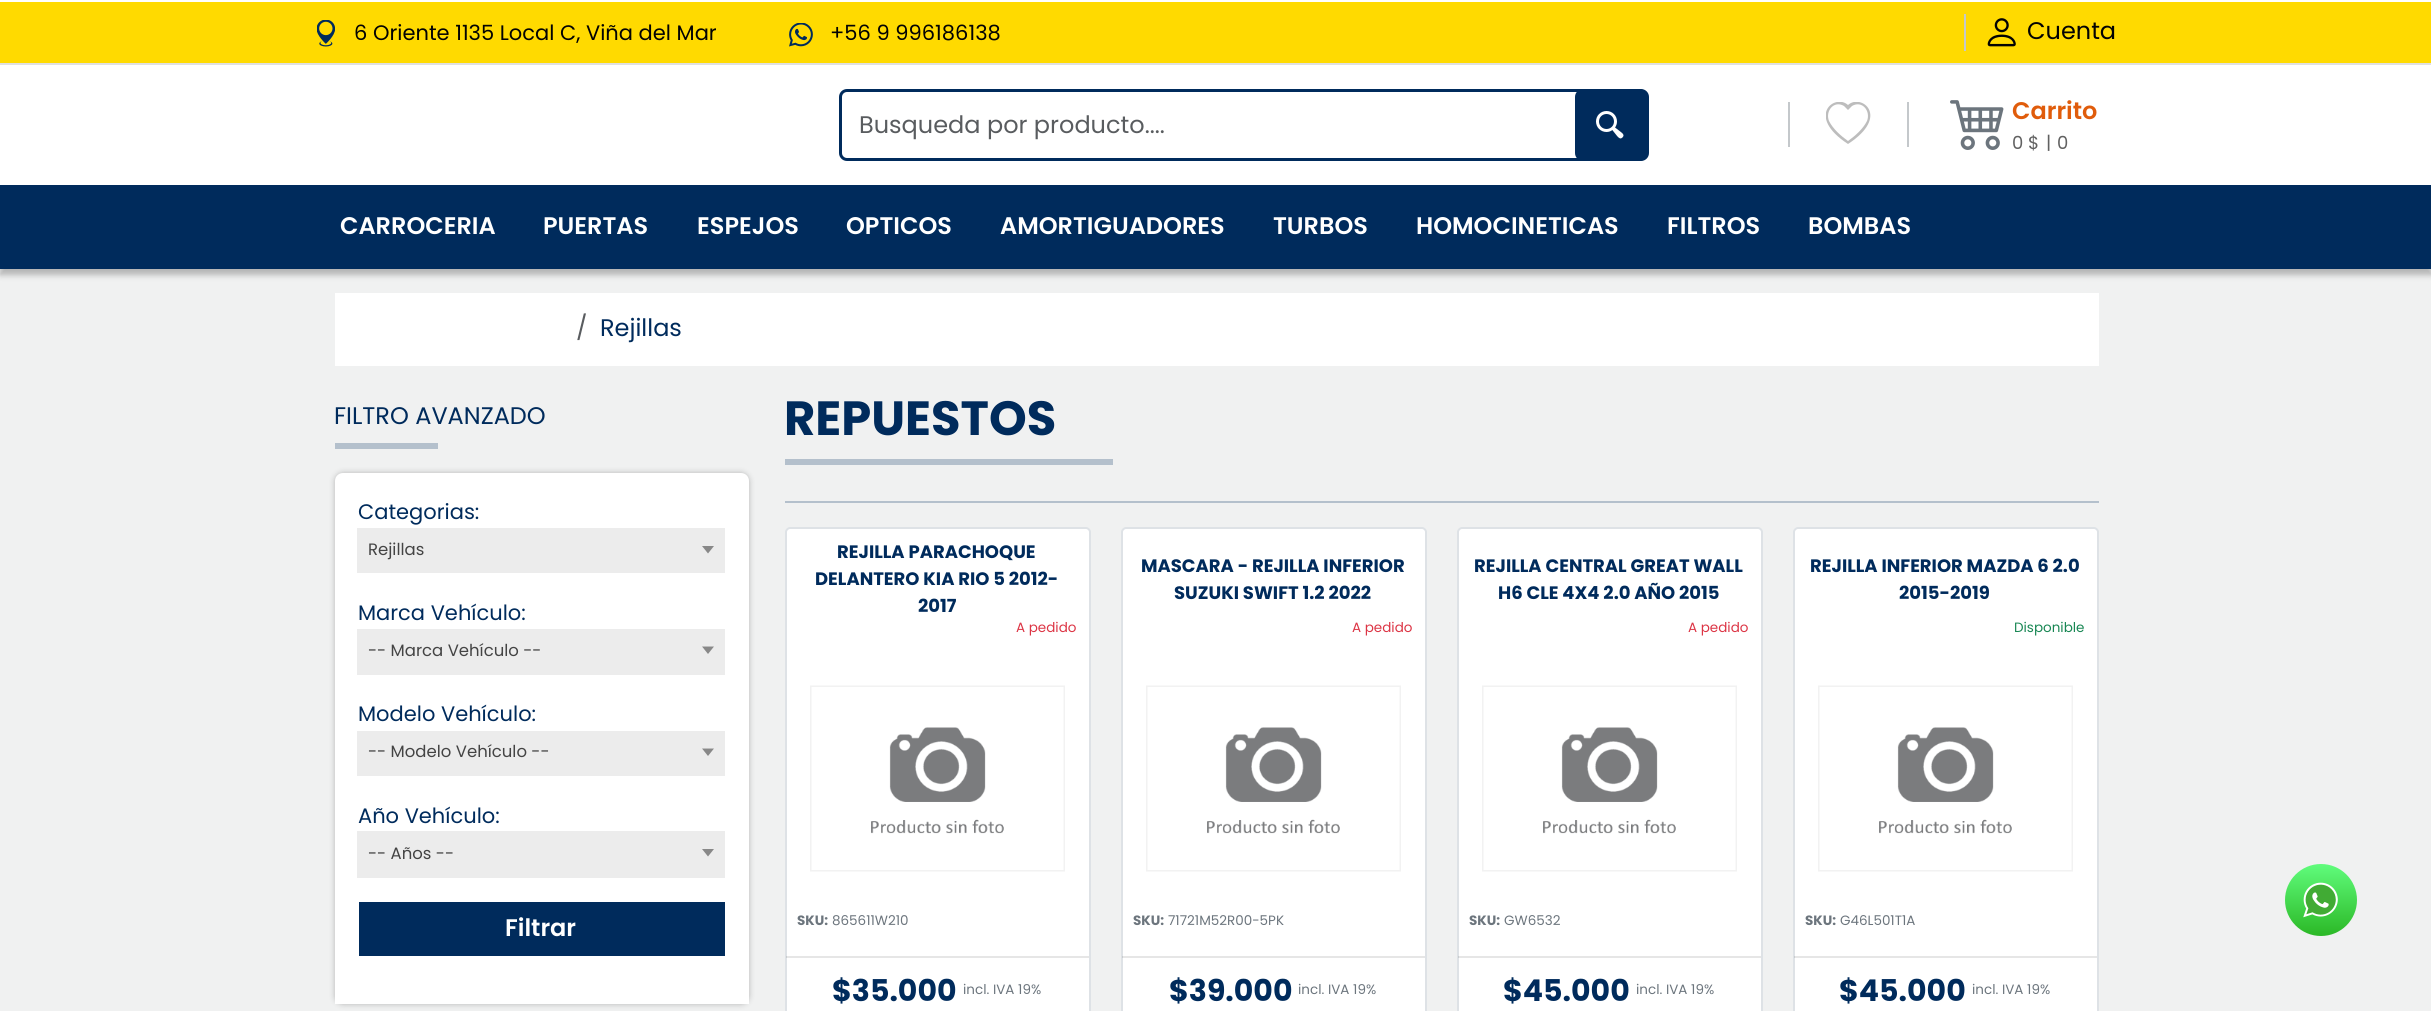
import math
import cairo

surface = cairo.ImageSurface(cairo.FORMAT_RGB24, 2431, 1011)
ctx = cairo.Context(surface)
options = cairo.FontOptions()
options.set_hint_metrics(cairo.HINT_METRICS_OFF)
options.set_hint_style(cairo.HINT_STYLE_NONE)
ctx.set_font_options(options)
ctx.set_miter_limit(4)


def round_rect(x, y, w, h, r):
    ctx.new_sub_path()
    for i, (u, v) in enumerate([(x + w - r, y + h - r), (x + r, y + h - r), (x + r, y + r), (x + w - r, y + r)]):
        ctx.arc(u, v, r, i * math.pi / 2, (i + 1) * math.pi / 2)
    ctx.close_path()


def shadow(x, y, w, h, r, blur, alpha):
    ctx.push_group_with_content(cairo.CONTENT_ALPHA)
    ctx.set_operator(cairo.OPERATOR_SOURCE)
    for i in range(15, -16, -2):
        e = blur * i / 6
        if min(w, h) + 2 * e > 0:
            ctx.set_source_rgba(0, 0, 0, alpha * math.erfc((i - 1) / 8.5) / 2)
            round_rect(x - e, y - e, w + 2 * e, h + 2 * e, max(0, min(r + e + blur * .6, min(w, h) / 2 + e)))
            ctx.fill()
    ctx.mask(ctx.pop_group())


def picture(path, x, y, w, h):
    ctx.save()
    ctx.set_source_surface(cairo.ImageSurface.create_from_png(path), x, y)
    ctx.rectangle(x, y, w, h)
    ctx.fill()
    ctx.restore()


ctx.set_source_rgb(1, 1, 1)
ctx.paint()
ctx.set_source_rgb(1, 0.855, 0)
ctx.rectangle(0, 2, 2431, 61)
ctx.fill()
ctx.set_source_rgb(0.878, 0.878, 0.878)
ctx.rectangle(0, 63, 2431, 2)
ctx.fill()
picture("img1.png", 317, 20, 18, 27)
ctx.select_font_face("Poppins")
ctx.set_font_size(21)
ctx.set_source_rgb(0.012, 0.012, 0.012)
ctx.move_to(354, 40)
ctx.show_text("6 Oriente 1135 Local C, Viña del Mar")
picture("img2.png", 789, 23, 24, 24)
ctx.move_to(830, 40)
ctx.show_text("+56 9 996186138")
ctx.set_source_rgb(0.769, 0.784, 0.796)
ctx.rectangle(1964, 14, 2, 37)
ctx.fill()
picture("img3.png", 1987, 18, 29, 29)
ctx.set_font_size(24)
ctx.set_source_rgb(0.012, 0.012, 0.012)
ctx.move_to(2027, 39)
ctx.show_text("Cuenta")
round_rect(840.5, 90.5, 807, 69, 6.5)
ctx.set_source_rgb(0, 0.169, 0.361)
ctx.set_line_width(3)
ctx.stroke()
ctx.set_source_rgb(0.349, 0.361, 0.373)
ctx.move_to(859, 133)
ctx.show_text("Busqueda por producto....")
ctx.set_source_rgb(0, 0.169, 0.361)
round_rect(1575, 89, 72, 72, 8)
ctx.fill()
picture("img4.png", 1596, 111, 28, 28)
ctx.set_source_rgb(0.769, 0.784, 0.796)
ctx.rectangle(1907, 102, 2, 45)
ctx.fill()
ctx.rectangle(1788, 102, 2, 45)
ctx.fill()
ctx.save()
ctx.rectangle(1826, 102, 45, 45)
ctx.clip()
ctx.set_source_rgb(0.741, 0.741, 0.741)
ctx.new_path()
ctx.move_to(1848, 110)
ctx.line_to(1844, 106)
ctx.curve_to(1834, 100, 1825, 111, 1829, 121)
ctx.curve_to(1833, 129, 1841, 136, 1848, 141)
ctx.curve_to(1855, 136, 1863, 129, 1867, 121)
ctx.curve_to(1871, 111, 1862, 100, 1852, 106)
ctx.close_path()
ctx.move_to(1848, 144)
ctx.curve_to(1805, 116, 1835, 93, 1848, 105)
ctx.line_to(1848, 106)
ctx.line_to(1848, 105)
ctx.curve_to(1861, 93, 1891, 116, 1848, 144)
ctx.close_path()
ctx.fill()
ctx.restore()
picture("img5.png", 1950, 100, 54, 50)
ctx.select_font_face("Poppins SemiBold")
ctx.set_source_rgb(0.878, 0.361, 0.043)
ctx.move_to(2012, 119)
ctx.show_text("Carrito")
ctx.select_font_face("Poppins")
ctx.set_font_size(18)
ctx.set_source_rgb(0.38, 0.38, 0.38)
ctx.move_to(2012, 149)
ctx.show_text("0 $")
ctx.move_to(2046, 149)
ctx.show_text("|")
ctx.move_to(2057, 149)
ctx.show_text("0")
ctx.set_source_rgb(0.941, 0.945, 0.945)
ctx.rectangle(0, 269, 2431, 742)
ctx.fill()
ctx.set_source_rgb(0, 0, 0)
shadow(0, 191, 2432, 84, 0, 3, 0.25)
ctx.set_source_rgb(0, 0.169, 0.361)
ctx.rectangle(0, 185, 2431, 84)
ctx.fill()
ctx.select_font_face("Poppins SemiBold")
ctx.set_font_size(24)
ctx.set_source_rgb(1, 1, 1)
ctx.move_to(340, 234)
ctx.show_text("CARROCERIA")
ctx.move_to(543, 234)
ctx.show_text("PUERTAS")
ctx.move_to(697, 234)
ctx.show_text("ESPEJOS")
ctx.move_to(846, 234)
ctx.show_text("OPTICOS")
ctx.move_to(1000, 234)
ctx.show_text("AMORTIGUADORES")
ctx.move_to(1273, 234)
ctx.show_text("TURBOS")
ctx.move_to(1416, 234)
ctx.show_text("HOMOCINETICAS")
ctx.move_to(1667, 234)
ctx.show_text("FILTROS")
ctx.move_to(1808, 234)
ctx.show_text("BOMBAS")
ctx.rectangle(335, 293, 1764, 73)
ctx.fill()
ctx.select_font_face("Poppins")
ctx.set_source_rgb(0.349, 0.361, 0.373)
ctx.move_to(576, 336)
ctx.show_text("/")
ctx.set_source_rgb(0, 0.169, 0.361)
ctx.move_to(600, 336)
ctx.show_text("Rejillas")
ctx.move_to(334, 424)
ctx.show_text("FILTRO AVANZADO")
ctx.set_source_rgb(0.706, 0.753, 0.8)
ctx.rectangle(335, 443, 103, 6)
ctx.fill()
ctx.set_source_rgb(0, 0, 0)
shadow(335, 473, 414, 531, 8, 3, 0.25)
ctx.set_source_rgb(1, 1, 1)
ctx.new_path()
ctx.move_to(343, 473)
ctx.line_to(741, 473)
ctx.curve_to(745.5, 473, 749, 476.5, 749, 481)
ctx.line_to(749, 1004)
ctx.line_to(335, 1004)
ctx.line_to(335, 481)
ctx.curve_to(335, 476.5, 338.5, 473, 343, 473)
ctx.close_path()
ctx.fill()
ctx.set_font_size(21)
ctx.set_source_rgb(0, 0.169, 0.361)
ctx.move_to(358, 519)
ctx.show_text("Categorias:")
ctx.set_source_rgb(0.925, 0.925, 0.925)
ctx.rectangle(357, 528, 368, 45)
ctx.fill()
ctx.set_font_size(16.5)
ctx.set_source_rgb(0.267, 0.267, 0.267)
ctx.move_to(368, 555)
ctx.show_text("Rejillas")
ctx.set_source_rgb(0.533, 0.533, 0.533)
ctx.new_path()
ctx.move_to(702, 546)
ctx.line_to(714, 546)
ctx.line_to(708, 553.5)
ctx.close_path()
ctx.fill()
ctx.set_font_size(21)
ctx.set_source_rgb(0, 0.169, 0.361)
ctx.move_to(358, 620)
ctx.show_text("Marca Vehículo:")
ctx.set_source_rgb(0.925, 0.925, 0.925)
ctx.rectangle(357, 629, 368, 46)
ctx.fill()
ctx.set_font_size(16.5)
ctx.set_source_rgb(0.267, 0.267, 0.267)
ctx.move_to(368, 656)
ctx.show_text("-- Marca Vehículo --")
ctx.set_source_rgb(0.533, 0.533, 0.533)
ctx.new_path()
ctx.move_to(702, 646.5)
ctx.line_to(714, 646.5)
ctx.line_to(708, 654)
ctx.close_path()
ctx.fill()
ctx.set_font_size(21)
ctx.set_source_rgb(0, 0.169, 0.361)
ctx.move_to(358, 721)
ctx.show_text("Modelo Vehículo:")
ctx.set_source_rgb(0.925, 0.925, 0.925)
ctx.rectangle(357, 731, 368, 45)
ctx.fill()
ctx.set_font_size(16.5)
ctx.set_source_rgb(0.267, 0.267, 0.267)
ctx.move_to(368, 757)
ctx.show_text("-- Modelo Vehículo --")
ctx.set_source_rgb(0.533, 0.533, 0.533)
ctx.new_path()
ctx.move_to(702, 748.5)
ctx.line_to(714, 748.5)
ctx.line_to(708, 756)
ctx.close_path()
ctx.fill()
ctx.set_font_size(21)
ctx.set_source_rgb(0, 0.169, 0.361)
ctx.move_to(358, 823)
ctx.show_text("Año Vehículo:")
ctx.set_source_rgb(0.925, 0.925, 0.925)
ctx.rectangle(357, 831, 368, 47)
ctx.fill()
ctx.set_font_size(16.5)
ctx.set_source_rgb(0.267, 0.267, 0.267)
ctx.move_to(368, 859)
ctx.show_text("-- Años --")
ctx.set_source_rgb(0.533, 0.533, 0.533)
ctx.new_path()
ctx.move_to(702, 849)
ctx.line_to(714, 849)
ctx.line_to(708, 856.5)
ctx.close_path()
ctx.fill()
ctx.set_source_rgb(0, 0.169, 0.361)
ctx.rectangle(359, 902, 366, 54)
ctx.fill()
ctx.select_font_face("Poppins SemiBold")
ctx.set_font_size(24)
ctx.set_source_rgb(1, 1, 1)
ctx.move_to(505, 936)
ctx.show_text("Filtrar")
ctx.select_font_face("Poppins", cairo.FONT_SLANT_NORMAL, cairo.FONT_WEIGHT_BOLD)
ctx.set_font_size(48)
ctx.set_source_rgb(0, 0.169, 0.361)
ctx.move_to(784, 435)
ctx.show_text("REPUESTOS")
ctx.set_source_rgb(0.706, 0.753, 0.8)
ctx.rectangle(785, 459, 328, 6)
ctx.fill()
ctx.rectangle(785, 501, 1314, 2)
ctx.fill()
ctx.set_source_rgb(1, 1, 1)
ctx.new_path()
ctx.move_to(790, 528)
ctx.line_to(1086, 528)
ctx.curve_to(1088, 528, 1090, 530, 1090, 532)
ctx.line_to(1090, 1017)
ctx.line_to(786, 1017)
ctx.line_to(786, 532)
ctx.curve_to(786, 530, 788, 528, 790, 528)
ctx.close_path()
ctx.fill_preserve()
ctx.set_source_rgb(0.871, 0.886, 0.902)
ctx.set_line_width(2)
ctx.stroke()
ctx.set_font_size(18)
ctx.set_source_rgb(0, 0.169, 0.361)
ctx.move_to(837, 558)
ctx.show_text("REJILLA PARACHOQUE")
ctx.move_to(815, 585)
ctx.show_text("DELANTERO KIA RIO 5 2012-")
ctx.move_to(918, 612)
ctx.show_text("2017")
ctx.select_font_face("Poppins")
ctx.set_font_size(13.5)
ctx.set_source_rgb(0.863, 0.208, 0.271)
ctx.move_to(1016, 632)
ctx.show_text("A pedido")
picture("img6.png", 810, 685, 255, 187)
ctx.select_font_face("Poppins", cairo.FONT_SLANT_NORMAL, cairo.FONT_WEIGHT_BOLD)
ctx.set_source_rgb(0.424, 0.459, 0.49)
ctx.move_to(797, 925)
ctx.show_text("SKU:")
ctx.select_font_face("Poppins")
ctx.move_to(832, 925)
ctx.show_text("865611W210")
ctx.set_source_rgba(0, 0, 0, 0.1)
ctx.rectangle(786, 956, 303, 2)
ctx.fill()
ctx.select_font_face("Poppins", cairo.FONT_SLANT_NORMAL, cairo.FONT_WEIGHT_BOLD)
ctx.set_font_size(30)
ctx.set_source_rgb(0, 0.169, 0.361)
ctx.move_to(832, 1001)
ctx.show_text("$35.000")
ctx.select_font_face("Poppins")
ctx.set_font_size(13.5)
ctx.set_source_rgb(0.424, 0.459, 0.49)
ctx.move_to(963, 994)
ctx.show_text("incl. IVA 19%")
ctx.set_source_rgb(1, 1, 1)
ctx.new_path()
ctx.move_to(1126, 528)
ctx.line_to(1422, 528)
ctx.curve_to(1424, 528, 1426, 530, 1426, 532)
ctx.line_to(1426, 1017)
ctx.line_to(1122, 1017)
ctx.line_to(1122, 532)
ctx.curve_to(1122, 530, 1124, 528, 1126, 528)
ctx.close_path()
ctx.fill_preserve()
ctx.set_source_rgb(0.871, 0.886, 0.902)
ctx.stroke()
ctx.select_font_face("Poppins", cairo.FONT_SLANT_NORMAL, cairo.FONT_WEIGHT_BOLD)
ctx.set_font_size(18)
ctx.set_source_rgb(0, 0.169, 0.361)
ctx.move_to(1141, 572)
ctx.show_text("MASCARA - REJILLA INFERIOR")
ctx.move_to(1174, 599)
ctx.show_text("SUZUKI SWIFT 1.2 2022")
ctx.select_font_face("Poppins")
ctx.set_font_size(13.5)
ctx.set_source_rgb(0.863, 0.208, 0.271)
ctx.move_to(1352, 632)
ctx.show_text("A pedido")
picture("img7.png", 1146, 685, 255, 187)
ctx.select_font_face("Poppins", cairo.FONT_SLANT_NORMAL, cairo.FONT_WEIGHT_BOLD)
ctx.set_source_rgb(0.424, 0.459, 0.49)
ctx.move_to(1133, 925)
ctx.show_text("SKU:")
ctx.select_font_face("Poppins")
ctx.move_to(1168, 925)
ctx.show_text("71721M52R00-5PK")
ctx.set_source_rgba(0, 0, 0, 0.1)
ctx.rectangle(1122, 956, 303, 2)
ctx.fill()
ctx.select_font_face("Poppins", cairo.FONT_SLANT_NORMAL, cairo.FONT_WEIGHT_BOLD)
ctx.set_font_size(30)
ctx.set_source_rgb(0, 0.169, 0.361)
ctx.move_to(1169, 1001)
ctx.show_text("$39.000")
ctx.select_font_face("Poppins")
ctx.set_font_size(13.5)
ctx.set_source_rgb(0.424, 0.459, 0.49)
ctx.move_to(1298, 994)
ctx.show_text("incl. IVA 19%")
ctx.set_source_rgb(1, 1, 1)
ctx.new_path()
ctx.move_to(1462, 528)
ctx.line_to(1758, 528)
ctx.curve_to(1760, 528, 1762, 530, 1762, 532)
ctx.line_to(1762, 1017)
ctx.line_to(1458, 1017)
ctx.line_to(1458, 532)
ctx.curve_to(1458, 530, 1460, 528, 1462, 528)
ctx.close_path()
ctx.fill_preserve()
ctx.set_source_rgb(0.871, 0.886, 0.902)
ctx.stroke()
ctx.select_font_face("Poppins", cairo.FONT_SLANT_NORMAL, cairo.FONT_WEIGHT_BOLD)
ctx.set_font_size(18)
ctx.set_source_rgb(0, 0.169, 0.361)
ctx.move_to(1474, 572)
ctx.show_text("REJILLA CENTRAL GREAT WALL")
ctx.move_to(1498, 599)
ctx.show_text("H6 CLE 4X4 2.0 AÑO 2015")
ctx.select_font_face("Poppins")
ctx.set_font_size(13.5)
ctx.set_source_rgb(0.863, 0.208, 0.271)
ctx.move_to(1688, 632)
ctx.show_text("A pedido")
picture("img6.png", 1482, 685, 255, 187)
ctx.select_font_face("Poppins", cairo.FONT_SLANT_NORMAL, cairo.FONT_WEIGHT_BOLD)
ctx.set_source_rgb(0.424, 0.459, 0.49)
ctx.move_to(1469, 925)
ctx.show_text("SKU:")
ctx.select_font_face("Poppins")
ctx.move_to(1504, 925)
ctx.show_text("GW6532")
ctx.set_source_rgba(0, 0, 0, 0.1)
ctx.rectangle(1458, 956, 303, 2)
ctx.fill()
ctx.select_font_face("Poppins", cairo.FONT_SLANT_NORMAL, cairo.FONT_WEIGHT_BOLD)
ctx.set_font_size(30)
ctx.set_source_rgb(0, 0.169, 0.361)
ctx.move_to(1503, 1001)
ctx.show_text("$45.000")
ctx.select_font_face("Poppins")
ctx.set_font_size(13.5)
ctx.set_source_rgb(0.424, 0.459, 0.49)
ctx.move_to(1636, 994)
ctx.show_text("incl. IVA 19%")
ctx.set_source_rgb(1, 1, 1)
ctx.new_path()
ctx.move_to(1798, 528)
ctx.line_to(2094, 528)
ctx.curve_to(2096, 528, 2098, 530, 2098, 532)
ctx.line_to(2098, 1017)
ctx.line_to(1794, 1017)
ctx.line_to(1794, 532)
ctx.curve_to(1794, 530, 1796, 528, 1798, 528)
ctx.close_path()
ctx.fill_preserve()
ctx.set_source_rgb(0.871, 0.886, 0.902)
ctx.stroke()
ctx.select_font_face("Poppins", cairo.FONT_SLANT_NORMAL, cairo.FONT_WEIGHT_BOLD)
ctx.set_font_size(18)
ctx.set_source_rgb(0, 0.169, 0.361)
ctx.move_to(1810, 572)
ctx.show_text("REJILLA INFERIOR MAZDA 6 2.0")
ctx.move_to(1899, 599)
ctx.show_text("2015-2019")
ctx.select_font_face("Poppins")
ctx.set_font_size(13.5)
ctx.set_source_rgb(0.098, 0.529, 0.329)
ctx.move_to(2014, 632)
ctx.show_text("Disponible")
picture("img7.png", 1818, 685, 255, 187)
ctx.select_font_face("Poppins", cairo.FONT_SLANT_NORMAL, cairo.FONT_WEIGHT_BOLD)
ctx.set_source_rgb(0.424, 0.459, 0.49)
ctx.move_to(1805, 925)
ctx.show_text("SKU:")
ctx.select_font_face("Poppins")
ctx.move_to(1840, 925)
ctx.show_text("G46L501T1A")
ctx.set_source_rgba(0, 0, 0, 0.1)
ctx.rectangle(1794, 956, 303, 2)
ctx.fill()
ctx.select_font_face("Poppins", cairo.FONT_SLANT_NORMAL, cairo.FONT_WEIGHT_BOLD)
ctx.set_font_size(30)
ctx.set_source_rgb(0, 0.169, 0.361)
ctx.move_to(1839, 1001)
ctx.show_text("$45.000")
ctx.select_font_face("Poppins")
ctx.set_font_size(13.5)
ctx.set_source_rgb(0.424, 0.459, 0.49)
ctx.move_to(1972, 994)
ctx.show_text("incl. IVA 19%")
gradient = cairo.LinearGradient(2321, 864, 2321, 936)
gradient.add_color_stop_rgba(0, 0.376, 0.988, 0.486, 1)
gradient.add_color_stop_rgba(1, 0.169, 0.722, 0.149, 1)
ctx.set_source(gradient)
ctx.new_path()
ctx.arc(2321, 900, 36, 0, 2 * math.pi)
ctx.fill()
picture("img8.png", 2303, 882, 35, 36)
surface.write_to_png("page.png")
